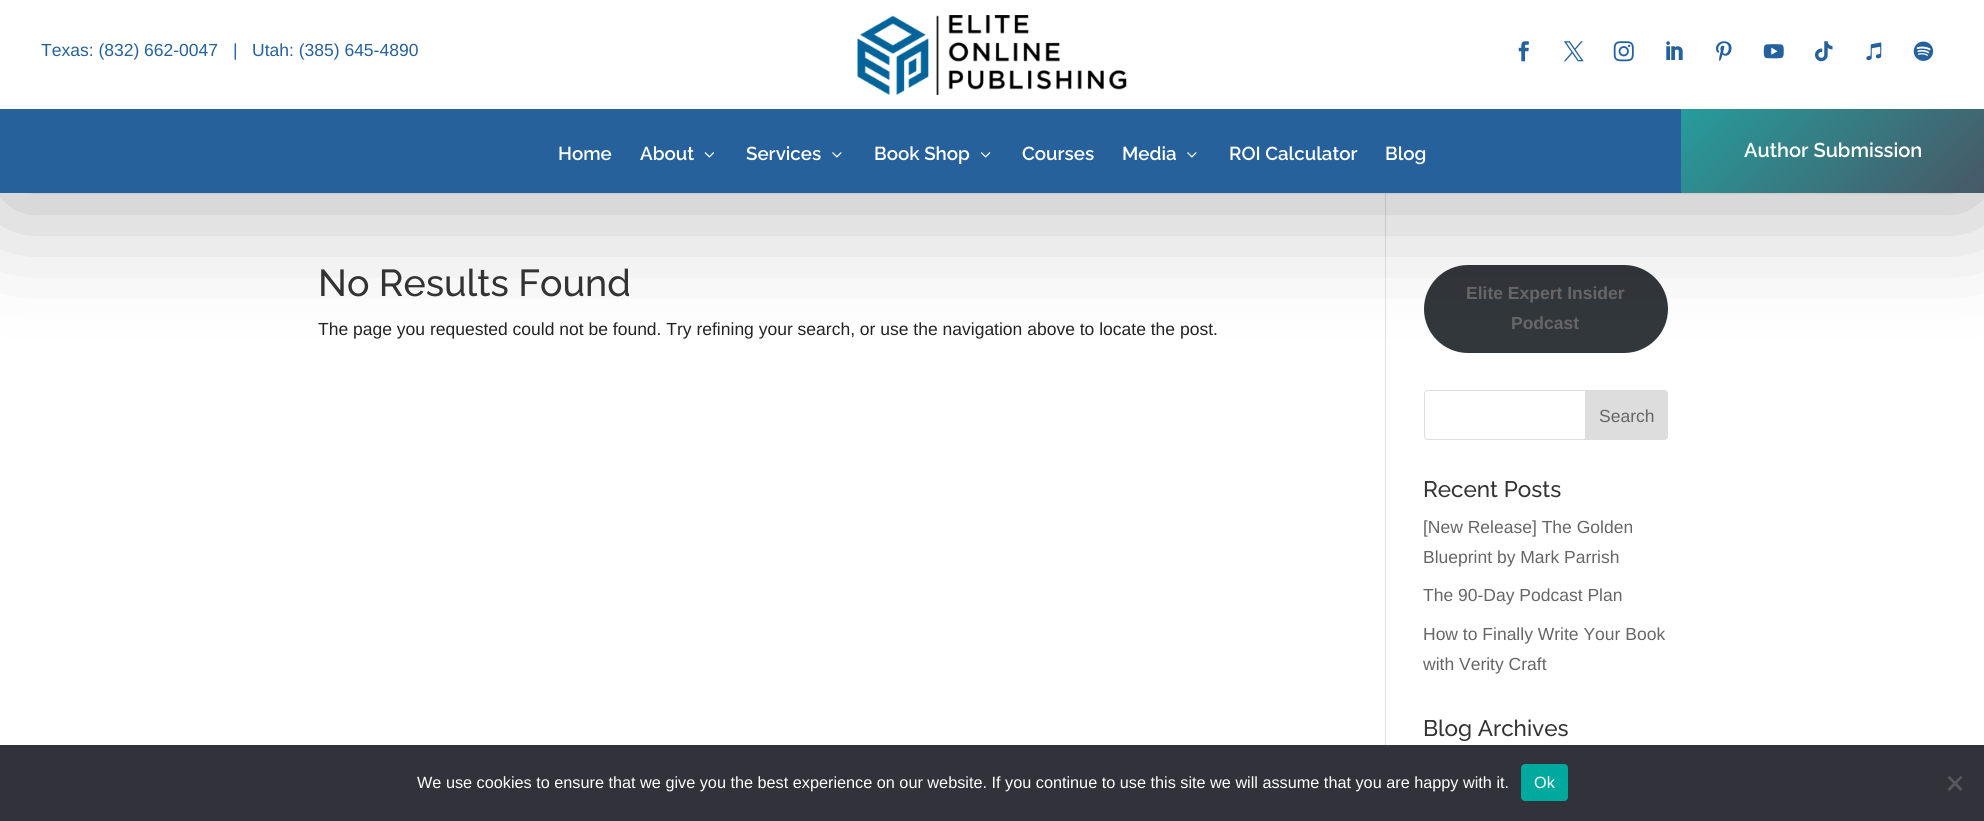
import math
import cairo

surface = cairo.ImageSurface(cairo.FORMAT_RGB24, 1984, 821)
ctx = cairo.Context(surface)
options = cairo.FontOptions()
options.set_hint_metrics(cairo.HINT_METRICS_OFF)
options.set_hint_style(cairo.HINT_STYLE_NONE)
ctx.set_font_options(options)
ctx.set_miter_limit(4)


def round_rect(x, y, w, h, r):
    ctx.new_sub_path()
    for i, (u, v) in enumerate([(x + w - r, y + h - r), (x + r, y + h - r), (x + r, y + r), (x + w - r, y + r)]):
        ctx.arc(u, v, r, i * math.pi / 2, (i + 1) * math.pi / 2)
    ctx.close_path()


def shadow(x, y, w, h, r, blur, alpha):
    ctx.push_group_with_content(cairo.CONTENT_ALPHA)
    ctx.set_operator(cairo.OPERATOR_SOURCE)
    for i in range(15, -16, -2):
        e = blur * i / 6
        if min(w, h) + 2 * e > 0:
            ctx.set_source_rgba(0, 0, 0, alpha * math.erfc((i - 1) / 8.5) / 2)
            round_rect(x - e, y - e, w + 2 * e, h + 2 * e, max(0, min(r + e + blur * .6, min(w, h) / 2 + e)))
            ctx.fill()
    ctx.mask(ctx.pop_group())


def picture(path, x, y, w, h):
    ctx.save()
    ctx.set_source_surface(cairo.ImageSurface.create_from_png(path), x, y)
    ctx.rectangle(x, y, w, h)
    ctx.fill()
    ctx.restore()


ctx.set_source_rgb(1, 1, 1)
ctx.paint()
ctx.set_source_rgb(0.886, 0.886, 0.886)
ctx.rectangle(1385, 193, 1, 552)
ctx.fill()
ctx.set_source_rgb(0.196, 0.216, 0.235)
round_rect(1424, 265, 244, 88, 44)
ctx.fill()
round_rect(1424.5, 390.5, 243, 49, 3.5)
ctx.set_source_rgb(0.867, 0.867, 0.867)
ctx.set_line_width(1)
ctx.stroke()
ctx.new_path()
ctx.move_to(1585.5, 390.5)
ctx.line_to(1664, 390.5)
ctx.curve_to(1666, 390.5, 1667.5, 392, 1667.5, 394)
ctx.line_to(1667.5, 436)
ctx.curve_to(1667.5, 438, 1666, 439.5, 1664, 439.5)
ctx.line_to(1585.5, 439.5)
ctx.close_path()
ctx.fill_preserve()
ctx.stroke()
ctx.set_source_rgb(0, 0, 0)
shadow(0, 13, 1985, 192, 0, 62.5, 0.3)
ctx.set_source_rgb(1, 1, 1)
ctx.rectangle(0, 0, 1984, 109)
ctx.fill()
ctx.select_font_face("Liberation Sans")
ctx.set_font_size(17.5)
ctx.set_source_rgb(0.145, 0.38, 0.612)
ctx.move_to(41, 56)
ctx.show_text("Texas: (832) 662-0047")
ctx.move_to(233, 56)
ctx.show_text("|")
ctx.move_to(252, 56)
ctx.show_text("Utah: (385) 645-4890")
picture("img1.png", 857, 15, 270, 80)
picture("img2.png", 1518, 41, 11, 21)
picture("img3.png", 1563, 41, 21, 21)
picture("img4.png", 1613, 41, 21, 21)
picture("img5.png", 1666, 41, 17, 19)
picture("img6.png", 1716, 41, 16, 21)
picture("img7.png", 1763, 44, 21, 15)
picture("img8.png", 1815, 41, 18, 21)
picture("img9.png", 1866, 42, 16, 19)
picture("img10.png", 1913, 41, 21, 20)
ctx.set_source_rgb(0.149, 0.38, 0.612)
ctx.rectangle(0, 109, 1681, 84)
ctx.fill()
ctx.select_font_face("Raleway SemiBold")
ctx.set_font_size(18.75)
ctx.set_source_rgb(1, 1, 1)
ctx.move_to(558, 160)
ctx.show_text("Home")
ctx.move_to(640, 160)
ctx.show_text("About")
picture("img11.png", 704, 152, 10, 6)
ctx.move_to(746, 160)
ctx.show_text("Services")
picture("img12.png", 832, 152, 10, 6)
ctx.move_to(874, 160)
ctx.show_text("Book Shop")
picture("img13.png", 981, 152, 10, 6)
ctx.move_to(1022, 160)
ctx.show_text("Courses")
ctx.move_to(1122, 160)
ctx.show_text("Media")
picture("img12.png", 1187, 152, 10, 6)
ctx.move_to(1229, 160)
ctx.show_text("ROI Calculator")
ctx.move_to(1385, 160)
ctx.show_text("Blog")
gradient = cairo.LinearGradient(1736, 54, 1930, 248)
gradient.add_color_stop_rgba(0, 0.149, 0.612, 0.612, 1)
gradient.add_color_stop_rgba(1, 0.282, 0.345, 0.4, 1)
ctx.set_source(gradient)
ctx.rectangle(1681, 109, 303, 84)
ctx.fill()
ctx.set_font_size(20)
ctx.set_source_rgb(1, 1, 1)
ctx.move_to(1744, 157)
ctx.show_text("Author Submission")
ctx.select_font_face("Raleway Medium")
ctx.set_font_size(37.5)
ctx.set_source_rgb(0.2, 0.2, 0.2)
ctx.move_to(318, 296)
ctx.show_text("No Results Found")
ctx.select_font_face("Liberation Sans")
ctx.set_font_size(17.5)
ctx.set_source_rgb(0.137, 0.137, 0.137)
ctx.move_to(318, 335)
ctx.show_text("The page you requested could not be found. Try refining your search, or use the navigation above to locate the post.")
ctx.select_font_face("Liberation Sans", cairo.FONT_SLANT_NORMAL, cairo.FONT_WEIGHT_BOLD)
ctx.set_source_rgb(0.4, 0.4, 0.4)
ctx.move_to(1466, 299)
ctx.show_text("Elite Expert Insider")
ctx.move_to(1511, 329)
ctx.show_text("Podcast")
ctx.select_font_face("Liberation Sans")
ctx.move_to(1599, 422)
ctx.show_text("Search")
ctx.select_font_face("Raleway Medium")
ctx.set_font_size(22.5)
ctx.set_source_rgb(0.2, 0.2, 0.2)
ctx.move_to(1423, 497)
ctx.show_text("Recent Posts")
ctx.select_font_face("Liberation Sans")
ctx.set_font_size(17.5)
ctx.set_source_rgb(0.4, 0.4, 0.4)
ctx.move_to(1423, 533)
ctx.show_text("[New Release] The Golden")
ctx.move_to(1423, 563)
ctx.show_text("Blueprint by Mark Parrish")
ctx.move_to(1423, 601)
ctx.show_text("The 90-Day Podcast Plan")
ctx.move_to(1423, 640)
ctx.show_text("How to Finally Write Your Book")
ctx.move_to(1423, 670)
ctx.show_text("with Verity Craft")
ctx.select_font_face("Raleway Medium")
ctx.set_font_size(22.5)
ctx.set_source_rgb(0.2, 0.2, 0.2)
ctx.move_to(1423, 736)
ctx.show_text("Blog Archives")
ctx.set_source_rgb(0.196, 0.196, 0.227)
ctx.rectangle(0, 745, 1984, 76)
ctx.fill()
ctx.select_font_face("Liberation Sans")
ctx.set_font_size(16.25)
ctx.set_source_rgb(1, 1, 1)
ctx.move_to(417, 788)
ctx.show_text("We use cookies to ensure that we give you the best experience on our website. If you continue to use this site we will assume that you are happy with it.")
ctx.set_source_rgb(0, 0.663, 0.616)
round_rect(1521, 764, 47, 37, 4)
ctx.fill()
ctx.set_source_rgb(1, 1, 1)
ctx.move_to(1534, 788)
ctx.show_text("Ok")
ctx.set_source_rgb(0.349, 0.349, 0.365)
ctx.new_path()
ctx.move_to(1960.5, 776)
ctx.line_to(1962.5, 777.5)
ctx.line_to(1949.5, 791)
ctx.line_to(1947.5, 789)
ctx.close_path()
ctx.fill()
ctx.new_path()
ctx.move_to(1947.5, 777.5)
ctx.line_to(1949.5, 776)
ctx.line_to(1962.5, 789)
ctx.line_to(1960.5, 791)
ctx.close_path()
ctx.fill()
surface.write_to_png("page.png")
